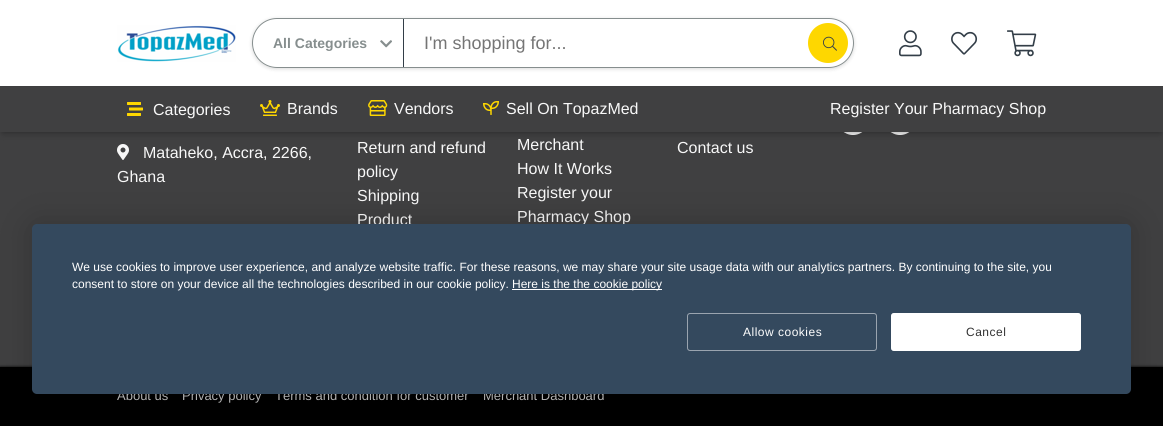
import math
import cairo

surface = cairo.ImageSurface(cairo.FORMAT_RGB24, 1163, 426)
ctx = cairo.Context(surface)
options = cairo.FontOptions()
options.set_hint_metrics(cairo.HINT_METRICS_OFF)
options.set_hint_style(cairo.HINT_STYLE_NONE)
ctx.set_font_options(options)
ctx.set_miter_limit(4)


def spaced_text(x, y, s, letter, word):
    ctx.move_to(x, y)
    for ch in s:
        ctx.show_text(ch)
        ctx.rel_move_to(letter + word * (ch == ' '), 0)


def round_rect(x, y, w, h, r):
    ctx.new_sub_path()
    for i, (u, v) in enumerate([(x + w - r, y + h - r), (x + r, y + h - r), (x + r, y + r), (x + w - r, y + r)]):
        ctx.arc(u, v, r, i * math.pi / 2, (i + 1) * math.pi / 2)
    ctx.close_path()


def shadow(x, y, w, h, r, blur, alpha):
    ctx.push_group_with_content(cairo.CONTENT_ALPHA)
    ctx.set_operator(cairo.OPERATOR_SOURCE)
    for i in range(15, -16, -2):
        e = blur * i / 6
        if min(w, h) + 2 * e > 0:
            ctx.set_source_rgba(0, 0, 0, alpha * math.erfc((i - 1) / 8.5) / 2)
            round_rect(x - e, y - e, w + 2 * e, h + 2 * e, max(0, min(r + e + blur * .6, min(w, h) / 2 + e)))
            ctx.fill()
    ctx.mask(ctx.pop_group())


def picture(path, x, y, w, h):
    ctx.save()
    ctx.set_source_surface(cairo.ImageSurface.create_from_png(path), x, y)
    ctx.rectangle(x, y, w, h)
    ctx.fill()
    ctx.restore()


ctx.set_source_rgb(0.251, 0.251, 0.255)
ctx.paint()
ctx.set_source_rgb(0.969, 0.969, 0.969)
ctx.arc(853, 119, 16, 0, 2 * math.pi)
ctx.fill()
ctx.arc(900, 119, 16, 0, 2 * math.pi)
ctx.fill()
picture("img11.png", 117, 144, 12, 16)
ctx.set_source_rgb(0, 0, 0)
shadow(3, 92, 1157, 40, 0, 4, 0.4)
ctx.set_source_rgb(1, 1, 1)
ctx.rectangle(0, 0, 1163, 86)
ctx.fill()
picture("img1.png", 117, 25, 119, 37)
ctx.save()
ctx.set_fill_rule(cairo.FILL_RULE_EVEN_ODD)
ctx.new_path()
ctx.move_to(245, 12)
ctx.line_to(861, 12)
ctx.line_to(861, 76)
ctx.line_to(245, 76)
ctx.close_path()
ctx.move_to(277, 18)
ctx.line_to(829, 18)
ctx.curve_to(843, 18, 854, 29, 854, 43)
ctx.curve_to(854, 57, 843, 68, 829, 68)
ctx.line_to(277, 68)
ctx.curve_to(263, 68, 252, 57, 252, 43)
ctx.curve_to(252, 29, 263, 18, 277, 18)
ctx.close_path()
ctx.clip()
ctx.set_source_rgb(0, 0, 0)
shadow(252, 19, 602, 50, 25, 2, 0.15)
ctx.restore()
round_rect(252.5, 18.5, 601, 49, 24.5)
ctx.set_source_rgb(0.525, 0.557, 0.557)
ctx.set_line_width(1)
ctx.stroke()
ctx.set_source_rgb(0.2, 0.243, 0.282)
ctx.rectangle(403, 19, 1, 48)
ctx.fill()
ctx.select_font_face("Liberation Sans", cairo.FONT_SLANT_NORMAL, cairo.FONT_WEIGHT_BOLD)
ctx.set_font_size(14)
ctx.set_source_rgb(0.525, 0.557, 0.557)
ctx.move_to(273, 48)
ctx.show_text("All Categories")
picture("img2.png", 380, 40, 12, 8)
ctx.select_font_face("Liberation Sans")
ctx.set_font_size(18)
ctx.set_source_rgb(0.459, 0.459, 0.459)
ctx.move_to(424, 49)
ctx.show_text("I'm shopping for...")
ctx.set_source_rgb(0.996, 0.843, 0)
ctx.new_path()
ctx.arc(828, 43, 20, 0, 2 * math.pi)
ctx.fill()
picture("img3.png", 823, 36, 14, 15)
picture("img4.png", 899, 30, 23, 27)
picture("img5.png", 951, 31, 27, 24)
picture("img6.png", 1007, 30, 30, 27)
ctx.set_source_rgb(0.251, 0.251, 0.255)
ctx.rectangle(0, 87, 1163, 45)
ctx.fill()
picture("img7.png", 127, 102, 16, 14)
ctx.set_font_size(16)
ctx.set_source_rgb(0.969, 0.969, 0.969)
ctx.move_to(153, 115)
ctx.show_text("Categories")
picture("img8.png", 260, 100, 20, 16)
ctx.move_to(287, 114)
ctx.show_text("Brands")
picture("img9.png", 368, 100, 20, 16)
ctx.move_to(394, 114)
ctx.show_text("Vendors")
picture("img10.png", 483, 101, 16, 14)
ctx.move_to(506, 114)
ctx.show_text("Sell On TopazMed")
ctx.move_to(830, 114)
ctx.show_text("Register Your Pharmacy Shop")
ctx.move_to(143, 158)
ctx.show_text("Mataheko, Accra, 2266,")
ctx.move_to(117, 182)
ctx.show_text("Ghana")
ctx.move_to(357, 153)
ctx.show_text("Return and refund")
ctx.move_to(357, 177)
ctx.show_text("policy")
ctx.move_to(357, 201)
ctx.show_text("Shipping")
ctx.move_to(357, 225)
ctx.show_text("Product")
ctx.move_to(517, 150)
ctx.show_text("Merchant")
ctx.move_to(517, 174)
ctx.show_text("How It Works")
ctx.move_to(517, 198)
ctx.show_text("Register your")
ctx.move_to(517, 222)
ctx.show_text("Pharmacy Shop")
ctx.move_to(677, 153)
ctx.show_text("Contact us")
ctx.set_source_rgb(0, 0, 0)
shadow(0, 367, 1163, 59, 0, 1.5, 1)
ctx.set_source_rgb(0, 0, 0)
ctx.rectangle(0, 367, 1163, 59)
ctx.fill()
ctx.set_font_size(13)
ctx.set_source_rgb(0.749, 0.749, 0.749)
ctx.move_to(117, 400)
ctx.show_text("About us")
ctx.move_to(182, 400)
ctx.show_text("Privacy policy")
ctx.move_to(275, 400)
ctx.show_text("Terms and condition for customer")
ctx.move_to(483, 400)
ctx.show_text("Merchant Dashboard")
ctx.set_source_rgb(0, 0, 0)
shadow(32, 224, 1099, 170, 5, 17.5, 0.2)
ctx.set_source_rgb(0.204, 0.286, 0.369)
round_rect(32, 224, 1099, 170, 5)
ctx.fill()
ctx.set_font_size(12)
ctx.set_source_rgb(1, 1, 1)
ctx.move_to(72, 271)
ctx.show_text("We use cookies to improve user experience, and analyze website traffic. For these reasons, we may share your site usage data with our analytics partners. By continuing to the site, you")
ctx.move_to(72, 288)
ctx.show_text("consent to store on your device all the technologies described in our cookie policy.")
ctx.rectangle(512, 289, 150, 1)
ctx.fill()
ctx.move_to(512, 288)
ctx.show_text("Here is the the cookie policy")
round_rect(687.5, 313.5, 189, 37, 2.5)
ctx.set_source_rgb(0.604, 0.643, 0.686)
ctx.stroke()
ctx.set_source_rgb(1, 1, 1)
spaced_text(743, 336, "Allow cookies", 0.5, 0)
round_rect(891, 313, 190, 38, 3)
ctx.fill()
round_rect(891.5, 313.5, 189, 37, 2.5)
ctx.set_source_rgba(1, 1, 1, 0.5)
ctx.stroke()
ctx.set_source_rgb(0.2, 0.2, 0.2)
spaced_text(966, 336, "Cancel", 0.5, 0)
surface.write_to_png("page.png")
